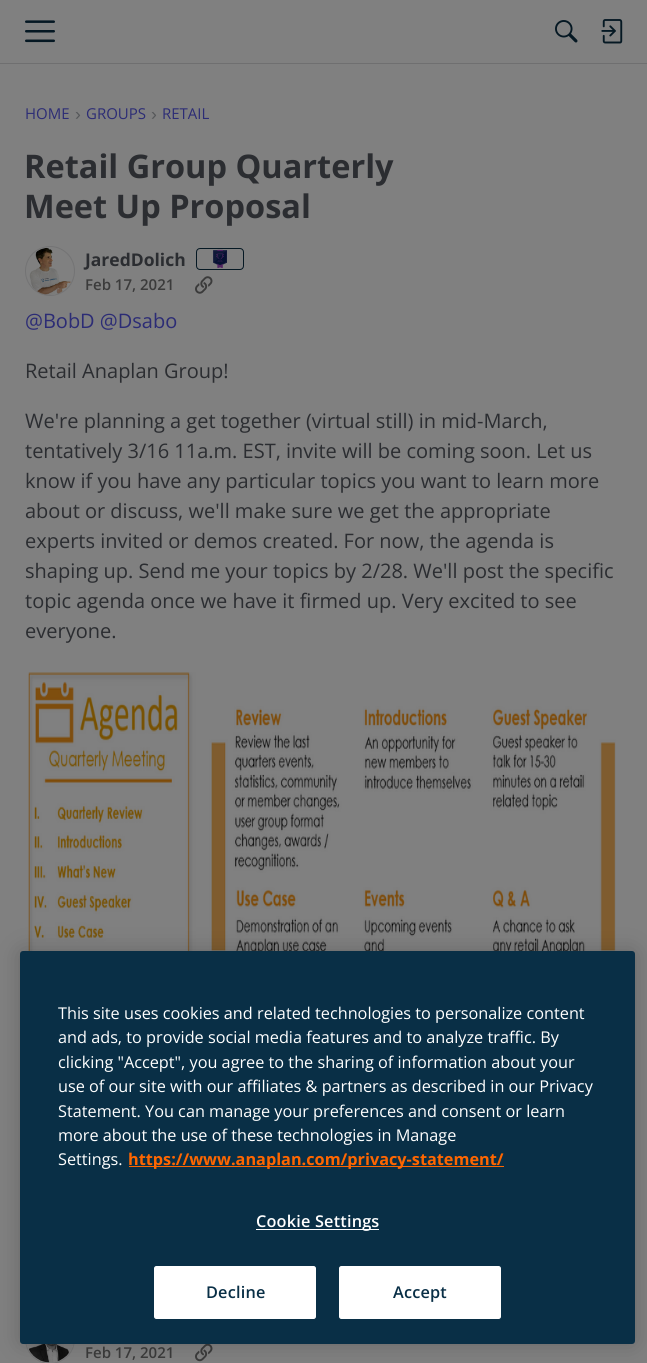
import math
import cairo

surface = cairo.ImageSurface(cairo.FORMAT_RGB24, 647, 1363)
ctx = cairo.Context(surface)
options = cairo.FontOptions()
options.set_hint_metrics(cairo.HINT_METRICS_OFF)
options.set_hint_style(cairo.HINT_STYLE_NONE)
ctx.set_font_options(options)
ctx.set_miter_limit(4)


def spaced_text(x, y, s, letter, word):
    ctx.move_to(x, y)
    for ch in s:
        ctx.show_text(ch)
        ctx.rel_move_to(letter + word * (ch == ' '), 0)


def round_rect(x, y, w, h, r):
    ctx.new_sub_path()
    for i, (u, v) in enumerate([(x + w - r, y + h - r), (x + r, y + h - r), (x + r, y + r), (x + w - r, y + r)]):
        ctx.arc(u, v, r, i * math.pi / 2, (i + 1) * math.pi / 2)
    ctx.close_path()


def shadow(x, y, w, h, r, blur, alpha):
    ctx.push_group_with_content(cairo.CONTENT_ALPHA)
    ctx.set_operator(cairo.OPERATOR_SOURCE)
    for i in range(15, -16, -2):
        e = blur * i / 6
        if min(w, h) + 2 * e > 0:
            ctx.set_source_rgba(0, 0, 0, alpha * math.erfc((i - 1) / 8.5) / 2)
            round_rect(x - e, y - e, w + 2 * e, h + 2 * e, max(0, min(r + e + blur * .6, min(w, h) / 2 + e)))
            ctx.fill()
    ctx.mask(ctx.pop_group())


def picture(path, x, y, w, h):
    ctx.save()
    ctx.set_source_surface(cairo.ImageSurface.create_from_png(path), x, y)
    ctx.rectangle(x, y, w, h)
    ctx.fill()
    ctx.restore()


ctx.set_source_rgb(0.502, 0.502, 0.502)
ctx.paint()
ctx.set_source_rgb(0.435, 0.435, 0.439)
ctx.rectangle(0, 63, 647, 1)
ctx.fill()
picture("img1.png", 25, 20, 30, 23)
picture("img2.png", 555, 20, 23, 23)
picture("img3.png", 601, 19, 22, 25)
ctx.select_font_face("Open Sans")
ctx.set_font_size(15)
ctx.set_source_rgb(0.173, 0.173, 0.459)
ctx.move_to(25, 119)
ctx.show_text("HOME")
ctx.select_font_face("Liberation Sans")
ctx.set_font_size(17.5)
ctx.set_source_rgb(0.333, 0.341, 0.349)
ctx.move_to(75, 120)
ctx.show_text("›")
ctx.select_font_face("Open Sans")
ctx.set_font_size(15)
ctx.set_source_rgb(0.173, 0.173, 0.459)
ctx.move_to(86, 119)
ctx.show_text("GROUPS")
ctx.select_font_face("Liberation Sans")
ctx.set_font_size(17.5)
ctx.set_source_rgb(0.333, 0.341, 0.349)
ctx.move_to(151, 120)
ctx.show_text("›")
ctx.select_font_face("Open Sans")
ctx.set_font_size(15)
ctx.set_source_rgb(0.173, 0.173, 0.459)
ctx.move_to(162, 119)
ctx.show_text("RETAIL")
ctx.select_font_face("Open Sans", cairo.FONT_SLANT_NORMAL, cairo.FONT_WEIGHT_BOLD)
ctx.set_font_size(32.5)
ctx.set_source_rgb(0.169, 0.176, 0.192)
ctx.move_to(24, 178)
ctx.show_text("Retail Group Quarterly")
ctx.move_to(24, 218)
ctx.show_text("Meet Up Proposal")
ctx.new_path()
ctx.arc(50, 271, 24.5, 0, 2 * math.pi)
ctx.set_source_rgb(0.451, 0.451, 0.455)
ctx.set_line_width(1)
ctx.stroke()
picture("img4.png", 29, 247, 42, 48)
ctx.set_font_size(17.5)
ctx.set_source_rgb(0.169, 0.176, 0.192)
ctx.move_to(85, 266)
ctx.show_text("JaredDolich")
round_rect(196.5, 248.5, 47, 21, 3.5)
ctx.set_source_rgb(0.02, 0.094, 0.137)
ctx.stroke()
picture("img5.png", 213, 249, 14, 19)
ctx.select_font_face("Open Sans SemiBold")
ctx.set_font_size(15)
ctx.set_source_rgb(0.231, 0.231, 0.231)
ctx.move_to(85, 290)
ctx.show_text("Feb 17, 2021")
picture("img6.png", 195, 276, 18, 18)
ctx.select_font_face("Open Sans")
ctx.set_font_size(20)
ctx.set_source_rgb(0.173, 0.173, 0.459)
ctx.move_to(25, 328)
ctx.show_text("@BobD @Dsabo")
ctx.set_source_rgb(0.169, 0.176, 0.192)
ctx.move_to(25, 378)
ctx.show_text("Retail Anaplan Group!")
ctx.move_to(25, 428)
ctx.show_text("We're planning a get together (virtual still) in mid-March,")
ctx.move_to(25, 458)
ctx.show_text("tentatively 3/16 11a.m. EST, invite will be coming soon. Let us")
ctx.move_to(25, 488)
ctx.show_text("know if you have any particular topics you want to learn more")
ctx.move_to(25, 518)
ctx.show_text("about or discuss, we'll make sure we get the appropriate")
ctx.move_to(25, 548)
ctx.show_text("experts invited or demos created. For now, the agenda is")
ctx.move_to(25, 578)
ctx.show_text("shaping up. Send me your topics by 2/28. We'll post the specific")
ctx.move_to(25, 608)
ctx.show_text("topic agenda once we have it firmed up. Very excited to see")
ctx.move_to(25, 638)
ctx.show_text("everyone.")
picture("img7.png", 28, 672, 588, 279)
ctx.arc(50, 1339, 24.5, 0, 2 * math.pi)
ctx.set_source_rgb(0.451, 0.451, 0.455)
ctx.stroke()
picture("img8.png", 27, 1344, 46, 19)
ctx.select_font_face("Open Sans SemiBold")
ctx.set_font_size(15)
ctx.set_source_rgb(0.231, 0.231, 0.231)
ctx.move_to(85, 1358)
ctx.show_text("Feb 17, 2021")
picture("img9.png", 195, 1344, 18, 18)
ctx.set_source_rgb(0, 0, 0)
shadow(20, 951, 615, 393, 3, 11, 0.2)
ctx.set_source_rgb(0.039, 0.184, 0.275)
round_rect(20, 951, 615, 393, 3)
ctx.fill()
ctx.select_font_face("Open Sans")
ctx.set_font_size(16.25)
ctx.set_source_rgb(1, 1, 1)
ctx.move_to(58, 1019)
ctx.show_text("This site uses cookies and related technologies to personalize content")
ctx.move_to(58, 1043)
ctx.show_text("and ads, to provide social media features and to analyze traffic. By")
ctx.move_to(58, 1068)
ctx.show_text("clicking \"Accept\", you agree to the sharing of information about your")
ctx.move_to(58, 1092)
ctx.show_text("use of our site with our affiliates & partners as described in our Privacy")
ctx.move_to(58, 1117)
ctx.show_text("Statement. You can manage your preferences and consent or learn")
ctx.move_to(58, 1141)
ctx.show_text("more about the use of these technologies in Manage")
ctx.move_to(58, 1165)
ctx.show_text("Settings.")
ctx.set_source_rgb(1, 0.4, 0)
ctx.rectangle(129, 1166, 375, 1)
ctx.fill()
ctx.select_font_face("Open Sans", cairo.FONT_SLANT_NORMAL, cairo.FONT_WEIGHT_BOLD)
ctx.move_to(128, 1165)
ctx.show_text("https://www.anaplan.com/privacy-statement/")
ctx.set_source_rgb(1, 1, 1)
ctx.rectangle(256, 1229, 123, 1)
ctx.fill()
ctx.select_font_face("Open Sans SemiBold")
spaced_text(256, 1227, "Cookie Settings", 0.2, 0)
round_rect(154.5, 1266.5, 161, 52, 2)
ctx.fill_preserve()
ctx.stroke()
ctx.set_source_rgb(0.039, 0.184, 0.275)
spaced_text(206, 1298, "Decline", 0.2, 0)
ctx.set_source_rgb(1, 1, 1)
round_rect(339.5, 1266.5, 161, 52, 2)
ctx.fill_preserve()
ctx.stroke()
ctx.set_source_rgb(0.039, 0.184, 0.275)
spaced_text(393, 1298, "Accept", 0.2, 0)
surface.write_to_png("page.png")
